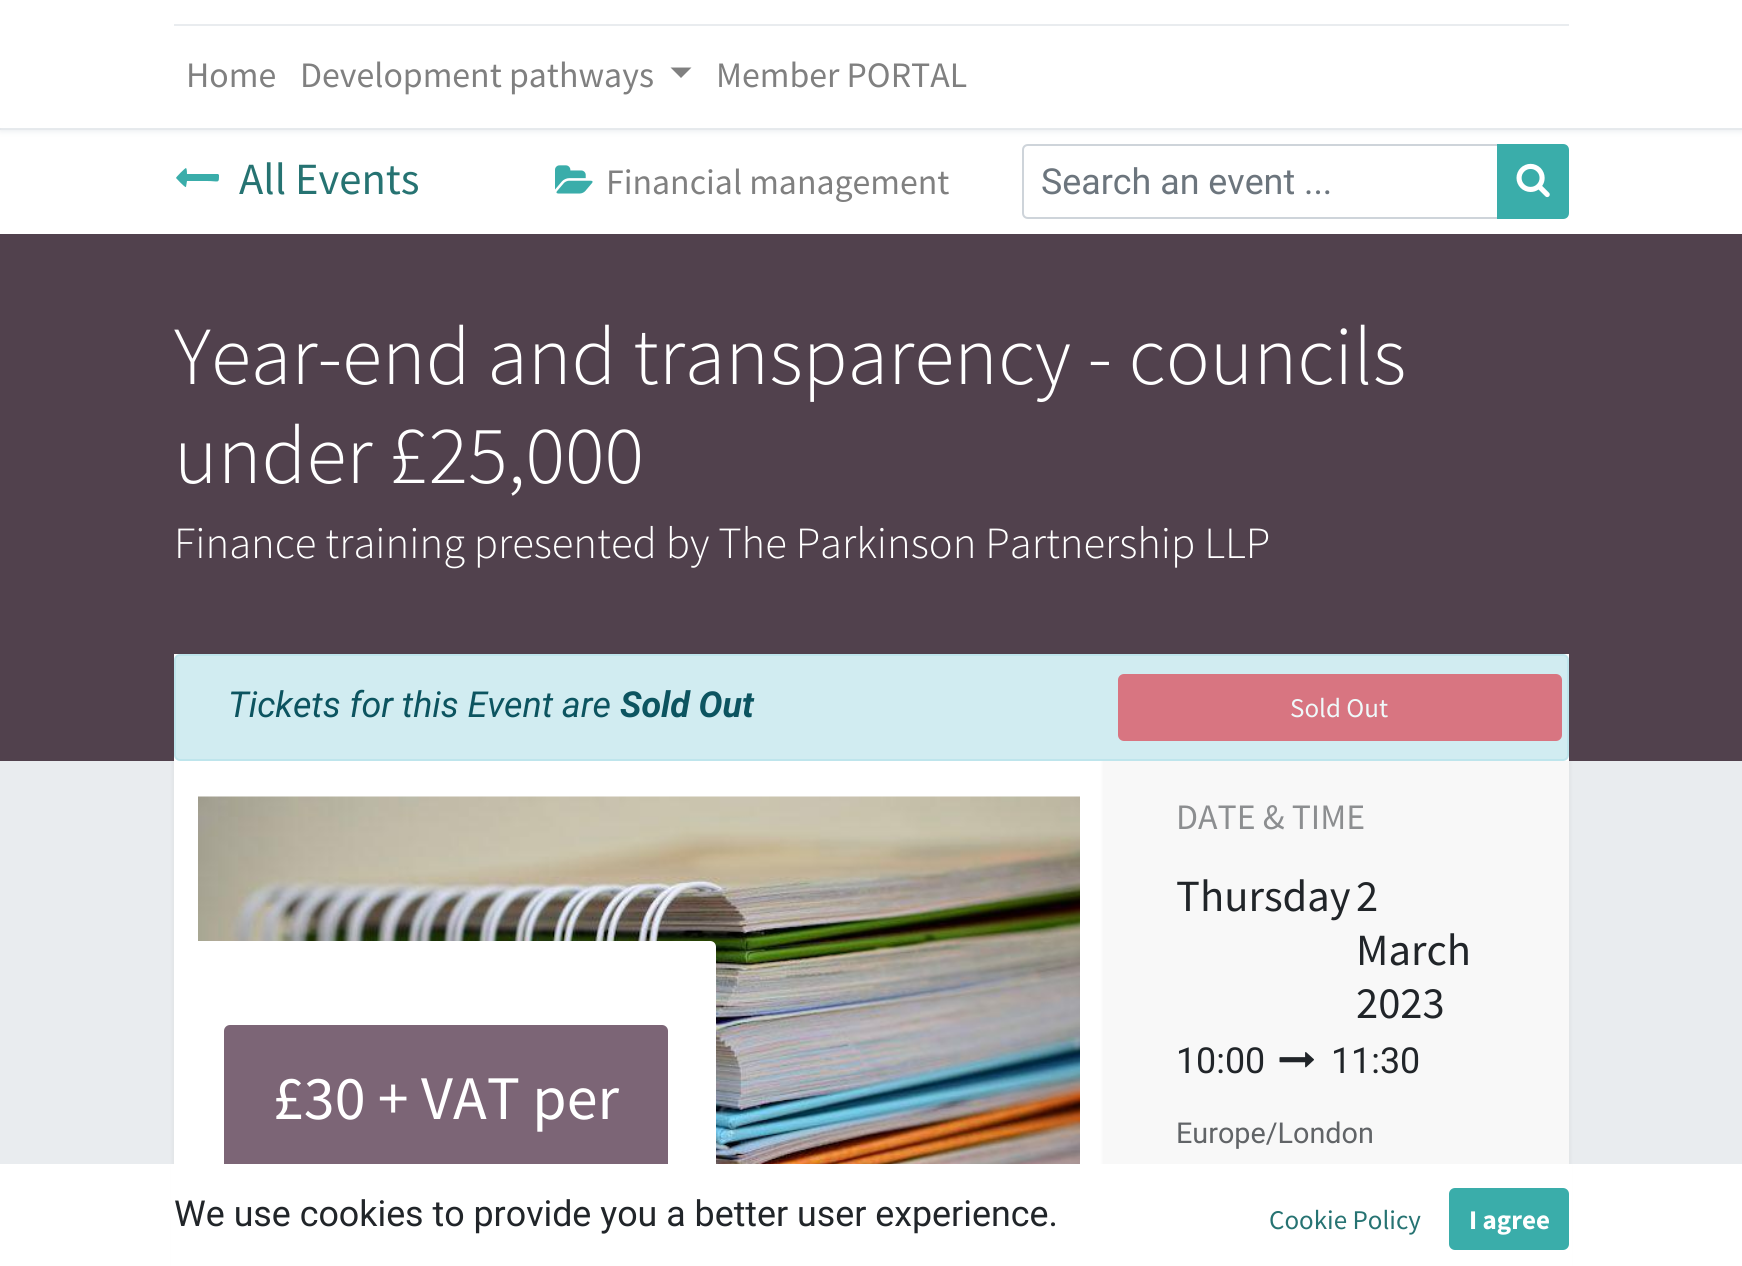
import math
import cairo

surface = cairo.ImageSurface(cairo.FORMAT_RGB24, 1742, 1266)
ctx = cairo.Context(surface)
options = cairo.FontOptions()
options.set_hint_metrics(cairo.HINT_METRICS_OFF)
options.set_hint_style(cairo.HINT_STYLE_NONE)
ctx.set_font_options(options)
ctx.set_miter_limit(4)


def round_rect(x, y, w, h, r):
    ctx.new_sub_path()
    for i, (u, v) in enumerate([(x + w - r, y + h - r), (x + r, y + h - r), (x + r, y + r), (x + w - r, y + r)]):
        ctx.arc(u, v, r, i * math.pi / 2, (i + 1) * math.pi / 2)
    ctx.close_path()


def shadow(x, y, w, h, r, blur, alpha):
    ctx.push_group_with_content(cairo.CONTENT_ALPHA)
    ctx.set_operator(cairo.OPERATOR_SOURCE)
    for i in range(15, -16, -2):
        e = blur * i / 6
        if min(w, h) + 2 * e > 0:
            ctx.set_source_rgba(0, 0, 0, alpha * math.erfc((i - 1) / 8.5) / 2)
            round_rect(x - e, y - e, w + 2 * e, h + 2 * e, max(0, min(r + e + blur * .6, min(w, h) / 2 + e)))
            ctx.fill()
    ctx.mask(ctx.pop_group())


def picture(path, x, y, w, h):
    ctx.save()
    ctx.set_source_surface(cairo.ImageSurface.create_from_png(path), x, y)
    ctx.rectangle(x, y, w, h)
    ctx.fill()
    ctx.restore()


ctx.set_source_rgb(1, 1, 1)
ctx.paint()
ctx.set_source_rgb(0.871, 0.886, 0.902)
ctx.rectangle(0, 128, 1742, 2)
ctx.fill()
ctx.set_source_rgb(0.914, 0.925, 0.937)
shadow(0, 3, 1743, 128, 0, 3, 1)
ctx.set_source_rgb(1, 1, 1)
ctx.rectangle(0, 0, 1742, 128)
ctx.fill()
ctx.set_source_rgb(0.914, 0.925, 0.937)
ctx.rectangle(174, 24, 1395, 2)
ctx.fill()
ctx.select_font_face("Source Sans Pro")
ctx.set_font_size(35.8)
ctx.set_source_rgb(0.502, 0.502, 0.502)
ctx.move_to(186, 87)
ctx.show_text("Home")
ctx.move_to(300, 87)
ctx.show_text("Development pathways")
ctx.new_path()
ctx.move_to(670.5, 67.5)
ctx.line_to(691.5, 67.5)
ctx.line_to(681, 78)
ctx.close_path()
ctx.fill()
ctx.move_to(716, 87)
ctx.show_text("Member PORTAL")
ctx.set_source_rgb(0.227, 0.678, 0.667)
ctx.new_path()
ctx.move_to(219, 175)
ctx.curve_to(219, 184, 219, 181, 207, 181)
ctx.line_to(187, 181)
ctx.line_to(186, 187)
ctx.curve_to(185, 188, 176, 178, 176, 178)
ctx.curve_to(176, 177, 185, 168, 186, 168)
ctx.curve_to(187, 169, 187, 173, 187, 174)
ctx.line_to(218, 174)
ctx.close_path()
ctx.fill()
ctx.set_font_size(44.6)
ctx.set_source_rgb(0.149, 0.451, 0.447)
ctx.move_to(239, 194)
ctx.show_text("All Events")
picture("img1.png", 555, 165, 38, 29)
ctx.set_font_size(35.8)
ctx.set_source_rgb(0.502, 0.502, 0.502)
ctx.move_to(606, 194)
ctx.show_text("Financial management")
ctx.new_path()
ctx.move_to(1028, 145)
ctx.line_to(1498, 145)
ctx.line_to(1498, 218)
ctx.line_to(1028, 218)
ctx.curve_to(1025, 218, 1023, 216, 1023, 213)
ctx.line_to(1023, 150)
ctx.curve_to(1023, 147, 1025, 145, 1028, 145)
ctx.close_path()
ctx.set_source_rgb(0.808, 0.831, 0.855)
ctx.stroke()
ctx.select_font_face("Roboto")
ctx.set_source_rgb(0.424, 0.459, 0.49)
ctx.move_to(1041, 194)
ctx.show_text("Search an event ...")
ctx.set_source_rgb(0.227, 0.678, 0.667)
ctx.new_path()
ctx.move_to(1498, 145)
ctx.line_to(1563, 145)
ctx.curve_to(1566, 145, 1568, 147, 1568, 150)
ctx.line_to(1568, 213)
ctx.curve_to(1568, 216, 1566, 218, 1563, 218)
ctx.line_to(1498, 218)
ctx.close_path()
ctx.fill_preserve()
ctx.stroke()
picture("img2.png", 1516, 163, 34, 35)
ctx.set_source_rgb(0.318, 0.255, 0.302)
ctx.rectangle(0, 234, 1742, 527)
ctx.fill()
ctx.select_font_face("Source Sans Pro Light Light")
ctx.set_font_size(82.5)
ctx.set_source_rgb(1, 1, 1)
ctx.move_to(174, 384)
ctx.show_text("Year-end and transparency - councils")
ctx.move_to(174, 483)
ctx.show_text("under £25,000")
ctx.set_font_size(44.6)
ctx.move_to(174, 558)
ctx.show_text("Finance training presented by The Parkinson Partnership LLP")
ctx.rectangle(174, 654, 1395, 107)
ctx.fill()
ctx.set_source_rgb(0.82, 0.925, 0.945)
round_rect(175, 655, 1393, 105, 5)
ctx.fill_preserve()
ctx.set_source_rgb(0.745, 0.898, 0.922)
ctx.stroke()
ctx.select_font_face("Roboto", cairo.FONT_SLANT_ITALIC)
ctx.set_font_size(35.8)
ctx.set_source_rgb(0.047, 0.329, 0.376)
ctx.move_to(228, 717)
ctx.show_text("Tickets for this Event are")
ctx.select_font_face("Roboto", cairo.FONT_SLANT_ITALIC, cairo.FONT_WEIGHT_BOLD)
ctx.move_to(620, 717)
ctx.show_text("Sold Out")
ctx.set_source_rgb(0.847, 0.459, 0.506)
round_rect(1119, 675, 442, 65, 5)
ctx.fill_preserve()
ctx.stroke()
ctx.select_font_face("Source Sans Pro")
ctx.set_font_size(27)
ctx.set_source_rgb(0.937, 0.973, 0.98)
ctx.move_to(1290, 717)
ctx.show_text("Sold Out")
ctx.set_source_rgb(0.914, 0.925, 0.937)
ctx.rectangle(0, 761, 1742, 403)
ctx.fill()
ctx.save()
ctx.rectangle(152, 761, 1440, 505)
ctx.clip()
ctx.set_source_rgb(0, 0, 0)
shadow(174, 728, 930, 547, 0, 3, 0.07)
ctx.restore()
ctx.set_source_rgb(1, 1, 1)
ctx.rectangle(174, 761, 930, 403)
ctx.fill()
picture("img3.png", 198, 796, 882, 368)
ctx.new_path()
ctx.move_to(182, 941)
ctx.line_to(710, 941)
ctx.curve_to(713.5, 941, 716, 943.5, 716, 947)
ctx.line_to(716, 1266)
ctx.line_to(176, 1266)
ctx.line_to(176, 947)
ctx.curve_to(176, 943.5, 178.5, 941, 182, 941)
ctx.close_path()
ctx.fill()
ctx.set_source_rgb(0.486, 0.396, 0.463)
round_rect(224, 1025, 444, 220, 6)
ctx.fill()
ctx.set_font_size(62)
ctx.set_source_rgb(1, 1, 1)
ctx.move_to(273, 1119)
ctx.show_text("£30 + VAT per")
ctx.save()
ctx.rectangle(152, 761, 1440, 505)
ctx.clip()
ctx.set_source_rgb(0, 0, 0)
shadow(1104, 728, 465, 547, 0, 3, 0.07)
ctx.restore()
ctx.set_source_rgb(0.969, 0.969, 0.969)
ctx.rectangle(1104, 761, 465, 403)
ctx.fill()
ctx.set_font_size(35.8)
ctx.set_source_rgb(0.549, 0.557, 0.565)
ctx.move_to(1176, 829)
ctx.show_text("DATE & TIME")
ctx.set_font_size(44.6)
ctx.set_source_rgb(0.129, 0.145, 0.161)
ctx.move_to(1176, 911)
ctx.show_text("Thursday")
ctx.move_to(1356, 911)
ctx.show_text("2")
ctx.move_to(1356, 965)
ctx.show_text("March")
ctx.move_to(1356, 1018)
ctx.show_text("2023")
ctx.select_font_face("Roboto")
ctx.set_font_size(35.8)
ctx.move_to(1176, 1073)
ctx.show_text("10:00")
picture("img4.png", 1279, 1052, 35, 16)
ctx.move_to(1331, 1073)
ctx.show_text("11:30")
ctx.set_font_size(28.75)
ctx.set_source_rgb(0.38, 0.392, 0.404)
ctx.move_to(1176, 1143)
ctx.show_text("Europe/London")
ctx.set_source_rgb(1, 1, 1)
ctx.rectangle(171, 1164, 1401, 102)
ctx.fill()
ctx.set_font_size(35.8)
ctx.set_source_rgb(0.129, 0.145, 0.161)
ctx.move_to(174, 1226)
ctx.show_text("We use cookies to provide you a better user experience.")
ctx.select_font_face("Source Sans Pro")
ctx.set_font_size(27)
ctx.set_source_rgb(0.149, 0.451, 0.447)
ctx.move_to(1269, 1229)
ctx.show_text("Cookie Policy")
ctx.set_source_rgb(0.227, 0.678, 0.667)
round_rect(1450, 1189, 118, 60, 5)
ctx.fill_preserve()
ctx.stroke()
ctx.select_font_face("Source Sans Pro", cairo.FONT_SLANT_NORMAL, cairo.FONT_WEIGHT_BOLD)
ctx.set_source_rgb(1, 1, 1)
ctx.move_to(1469, 1229)
ctx.show_text("I agree")
surface.write_to_png("page.png")
